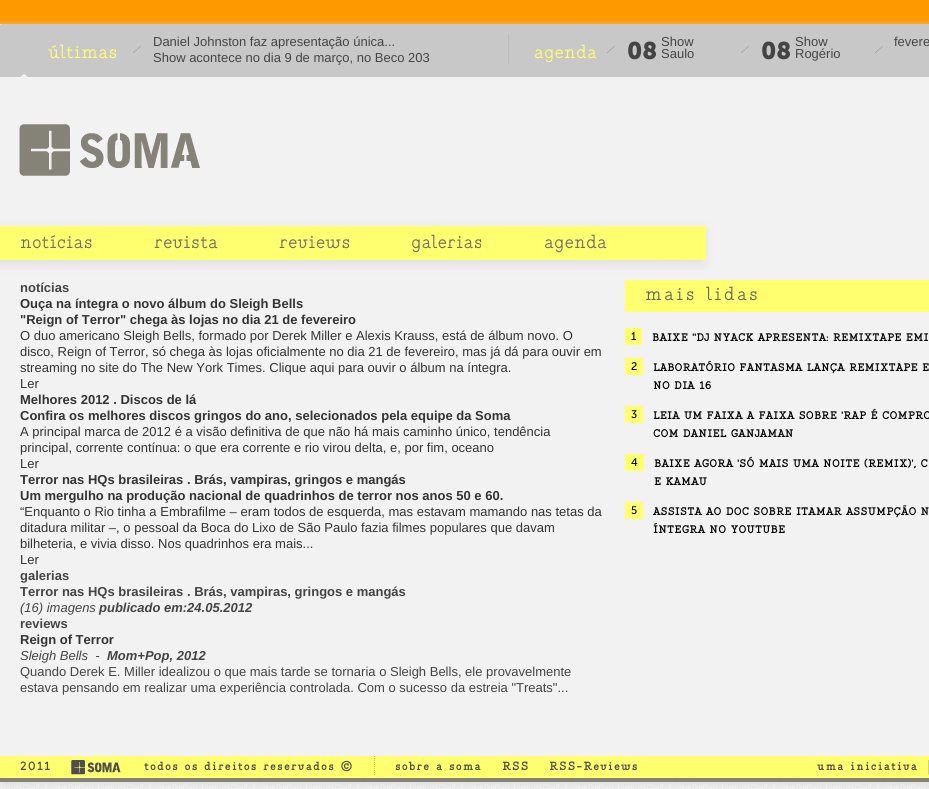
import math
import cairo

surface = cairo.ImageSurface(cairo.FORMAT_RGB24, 929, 789)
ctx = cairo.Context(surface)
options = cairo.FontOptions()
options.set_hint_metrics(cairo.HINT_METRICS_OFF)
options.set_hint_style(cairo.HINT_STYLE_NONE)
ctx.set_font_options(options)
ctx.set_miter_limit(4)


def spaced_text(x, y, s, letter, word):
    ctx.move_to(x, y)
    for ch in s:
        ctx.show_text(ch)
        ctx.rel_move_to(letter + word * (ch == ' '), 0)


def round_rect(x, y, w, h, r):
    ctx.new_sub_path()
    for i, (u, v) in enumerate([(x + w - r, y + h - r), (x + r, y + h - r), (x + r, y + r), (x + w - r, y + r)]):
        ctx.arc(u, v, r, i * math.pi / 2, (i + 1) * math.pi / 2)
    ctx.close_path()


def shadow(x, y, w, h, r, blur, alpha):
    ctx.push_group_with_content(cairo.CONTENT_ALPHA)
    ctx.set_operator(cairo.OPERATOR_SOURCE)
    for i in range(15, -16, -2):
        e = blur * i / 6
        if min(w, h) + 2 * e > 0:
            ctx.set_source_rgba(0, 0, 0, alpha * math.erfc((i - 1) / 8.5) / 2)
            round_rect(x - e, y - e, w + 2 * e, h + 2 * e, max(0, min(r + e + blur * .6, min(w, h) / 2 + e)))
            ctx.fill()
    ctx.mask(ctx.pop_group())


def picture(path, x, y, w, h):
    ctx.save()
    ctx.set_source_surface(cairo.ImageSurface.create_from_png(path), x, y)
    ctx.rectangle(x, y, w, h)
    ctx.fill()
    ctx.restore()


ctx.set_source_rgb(1, 1, 1)
ctx.paint()
picture("img1.png", 0, 782, 929, 7)
ctx.set_source_rgb(1, 0.6, 0)
ctx.rectangle(0, 0, 929, 24)
ctx.fill()
ctx.set_source_rgb(0.875, 0.875, 0.875)
shadow(0, 28, 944, 758, 0, 5, 1)
ctx.set_source_rgb(0.949, 0.949, 0.949)
ctx.rectangle(0, 75, 929, 681)
ctx.fill()
picture("img2.png", 0, 24, 929, 53)
ctx.select_font_face("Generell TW")
ctx.set_font_size(21)
ctx.set_source_rgb(1, 1, 0.435)
ctx.move_to(48, 58)
ctx.show_text("últimas")
picture("img3.png", 133, 45, 8, 8)
ctx.set_source_rgb(0.737, 0.737, 0.737)
ctx.rectangle(508, 34, 1, 30)
ctx.fill()
ctx.select_font_face("Liberation Sans")
ctx.set_font_size(13)
ctx.set_source_rgb(0.267, 0.267, 0.267)
ctx.move_to(153, 46)
ctx.show_text("Daniel Johnston faz apresentação única...")
ctx.move_to(153, 62)
ctx.show_text("Show acontece no dia 9 de março, no Beco 203")
ctx.select_font_face("Generell TW")
ctx.set_font_size(21)
ctx.set_source_rgb(1, 1, 0.435)
ctx.move_to(534, 58)
ctx.show_text("agenda")
picture("img3.png", 607, 45, 8, 8)
ctx.select_font_face("Museo Sans", cairo.FONT_SLANT_NORMAL, cairo.FONT_WEIGHT_BOLD)
ctx.set_font_size(24)
ctx.set_source_rgb(0.267, 0.267, 0.267)
ctx.move_to(627, 59)
ctx.show_text("08")
ctx.select_font_face("Liberation Sans")
ctx.set_font_size(13)
ctx.move_to(661, 46)
ctx.show_text("Show")
ctx.move_to(661, 58)
ctx.show_text("Saulo")
picture("img3.png", 741, 45, 8, 8)
ctx.select_font_face("Museo Sans", cairo.FONT_SLANT_NORMAL, cairo.FONT_WEIGHT_BOLD)
ctx.set_font_size(24)
ctx.move_to(761, 59)
ctx.show_text("08")
ctx.select_font_face("Liberation Sans")
ctx.set_font_size(13)
ctx.move_to(795, 46)
ctx.show_text("Show")
ctx.move_to(795, 58)
ctx.show_text("Rogério")
picture("img3.png", 875, 45, 8, 8)
ctx.move_to(894, 46)
ctx.show_text("fevere")
picture("img4.png", 16, 123, 184, 54)
ctx.set_source_rgb(0.875, 0.875, 0.875)
shadow(-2, 230, 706, 34, 0, 5, 1)
ctx.set_source_rgb(1, 1, 0.435)
ctx.rectangle(0, 226, 706, 34)
ctx.fill()
ctx.select_font_face("Generell TW")
ctx.set_font_size(21)
ctx.set_source_rgb(0.439, 0.439, 0.408)
ctx.move_to(20, 248)
ctx.show_text("notícias")
ctx.move_to(154, 248)
ctx.show_text("revista")
ctx.move_to(279, 248)
ctx.show_text("reviews")
ctx.move_to(411, 248)
ctx.show_text("galerias")
ctx.move_to(544, 248)
ctx.show_text("agenda")
ctx.select_font_face("Liberation Sans", cairo.FONT_SLANT_NORMAL, cairo.FONT_WEIGHT_BOLD)
ctx.set_font_size(13)
ctx.set_source_rgb(0.267, 0.267, 0.267)
ctx.move_to(20, 292)
ctx.show_text("notícias")
ctx.set_source_rgb(0.2, 0.2, 0.2)
ctx.move_to(20, 308)
ctx.show_text("Ouça na íntegra o novo álbum do Sleigh Bells")
ctx.move_to(20, 324)
ctx.show_text("\"Reign of Terror\" chega às lojas no dia 21 de fevereiro")
ctx.select_font_face("Liberation Sans")
ctx.move_to(20, 340)
ctx.show_text("O duo americano Sleigh Bells, formado por Derek Miller e Alexis Krauss, está de álbum novo. O")
ctx.move_to(20, 356)
ctx.show_text("disco, Reign of Terror, só chega às lojas oficialmente no dia 21 de fevereiro, mas já dá para ouvir em")
ctx.move_to(20, 372)
ctx.show_text("streaming no site do The New York Times. Clique aqui para ouvir o álbum na íntegra.")
ctx.move_to(20, 388)
ctx.show_text("Ler")
ctx.select_font_face("Liberation Sans", cairo.FONT_SLANT_NORMAL, cairo.FONT_WEIGHT_BOLD)
ctx.move_to(20, 404)
ctx.show_text("Melhores 2012 . Discos de lá")
ctx.move_to(20, 420)
ctx.show_text("Confira os melhores discos gringos do ano, selecionados pela equipe da Soma")
ctx.select_font_face("Liberation Sans")
ctx.move_to(20, 436)
ctx.show_text("A principal marca de 2012 é a visão definitiva de que não há mais caminho único, tendência")
ctx.move_to(20, 452)
ctx.show_text("principal, corrente contínua: o que era corrente e rio virou delta, e, por fim, oceano")
ctx.move_to(20, 468)
ctx.show_text("Ler")
ctx.select_font_face("Liberation Sans", cairo.FONT_SLANT_NORMAL, cairo.FONT_WEIGHT_BOLD)
ctx.move_to(20, 484)
ctx.show_text("Terror nas HQs brasileiras . Brás, vampiras, gringos e mangás")
ctx.move_to(20, 500)
ctx.show_text("Um mergulho na produção nacional de quadrinhos de terror nos anos 50 e 60.")
ctx.select_font_face("Liberation Sans")
ctx.move_to(20, 516)
ctx.show_text("“Enquanto o Rio tinha a Embrafilme – eram todos de esquerda, mas estavam mamando nas tetas da")
ctx.move_to(20, 532)
ctx.show_text("ditadura militar –, o pessoal da Boca do Lixo de São Paulo fazia filmes populares que davam")
ctx.move_to(20, 548)
ctx.show_text("bilheteria, e vivia disso. Nos quadrinhos era mais...")
ctx.move_to(20, 564)
ctx.show_text("Ler")
ctx.select_font_face("Liberation Sans", cairo.FONT_SLANT_NORMAL, cairo.FONT_WEIGHT_BOLD)
ctx.set_source_rgb(0.267, 0.267, 0.267)
ctx.move_to(20, 580)
ctx.show_text("galerias")
ctx.move_to(20, 596)
ctx.show_text("Terror nas HQs brasileiras . Brás, vampiras, gringos e mangás")
ctx.select_font_face("Liberation Sans", cairo.FONT_SLANT_ITALIC)
ctx.move_to(20, 612)
ctx.show_text("(16) imagens")
ctx.select_font_face("Liberation Sans", cairo.FONT_SLANT_ITALIC, cairo.FONT_WEIGHT_BOLD)
ctx.move_to(99, 612)
ctx.show_text("publicado em:24.05.2012")
ctx.select_font_face("Liberation Sans", cairo.FONT_SLANT_NORMAL, cairo.FONT_WEIGHT_BOLD)
ctx.move_to(20, 628)
ctx.show_text("reviews")
ctx.set_source_rgb(0.2, 0.2, 0.2)
ctx.move_to(20, 644)
ctx.show_text("Reign of Terror")
ctx.select_font_face("Liberation Sans", cairo.FONT_SLANT_ITALIC)
ctx.set_source_rgb(0.267, 0.267, 0.267)
ctx.move_to(20, 660)
ctx.show_text("Sleigh Bells  -")
ctx.select_font_face("Liberation Sans", cairo.FONT_SLANT_ITALIC, cairo.FONT_WEIGHT_BOLD)
ctx.move_to(107, 660)
ctx.show_text("Mom+Pop, 2012")
ctx.select_font_face("Liberation Sans")
ctx.move_to(20, 676)
ctx.show_text("Quando Derek E. Miller idealizou o que mais tarde se tornaria o Sleigh Bells, ele provavelmente")
ctx.move_to(20, 692)
ctx.show_text("estava pensando em realizar uma experiência controlada. Com o sucesso da estreia \"Treats\"...")
ctx.set_source_rgb(1, 1, 0.435)
ctx.rectangle(625, 280, 304, 32)
ctx.fill()
ctx.select_font_face("Generell TW")
ctx.set_font_size(21)
ctx.set_source_rgb(0.4, 0.4, 0.4)
spaced_text(645, 300, "mais lidas", 2, 0)
ctx.set_source_rgb(1, 1, 0.435)
ctx.rectangle(625, 328, 17, 17)
ctx.fill()
ctx.select_font_face("Museo Sans")
ctx.set_font_size(11)
ctx.set_source_rgb(0, 0, 0)
ctx.move_to(631, 340)
ctx.show_text("1")
ctx.select_font_face("Generell TW", cairo.FONT_SLANT_NORMAL, cairo.FONT_WEIGHT_BOLD)
ctx.set_font_size(12)
ctx.move_to(652, 341)
ctx.show_text("BAIXE \"DJ NYACK APRESENTA: REMIXTAPE EMI")
ctx.set_source_rgb(1, 1, 0.435)
ctx.rectangle(625, 358, 18, 17)
ctx.fill()
ctx.select_font_face("Museo Sans")
ctx.set_font_size(11)
ctx.set_source_rgb(0, 0, 0)
ctx.move_to(631, 370)
ctx.show_text("2")
ctx.select_font_face("Generell TW", cairo.FONT_SLANT_NORMAL, cairo.FONT_WEIGHT_BOLD)
ctx.set_font_size(12)
ctx.move_to(653, 371)
ctx.show_text("LABORATÓRIO FANTASMA LANÇA REMIXTAPE E")
ctx.move_to(653, 389)
ctx.show_text("NO DIA 16")
ctx.set_source_rgb(1, 1, 0.435)
ctx.rectangle(625, 406, 18, 17)
ctx.fill()
ctx.select_font_face("Museo Sans")
ctx.set_font_size(11)
ctx.set_source_rgb(0, 0, 0)
ctx.move_to(631, 418)
ctx.show_text("3")
ctx.select_font_face("Generell TW", cairo.FONT_SLANT_NORMAL, cairo.FONT_WEIGHT_BOLD)
ctx.set_font_size(12)
ctx.move_to(653, 419)
ctx.show_text("LEIA UM FAIXA A FAIXA SOBRE 'RAP É COMPRO")
ctx.move_to(653, 437)
ctx.show_text("COM DANIEL GANJAMAN")
ctx.set_source_rgb(1, 1, 0.435)
ctx.rectangle(625, 454, 19, 17)
ctx.fill()
ctx.select_font_face("Museo Sans")
ctx.set_font_size(11)
ctx.set_source_rgb(0, 0, 0)
ctx.move_to(631, 466)
ctx.show_text("4")
ctx.select_font_face("Generell TW", cairo.FONT_SLANT_NORMAL, cairo.FONT_WEIGHT_BOLD)
ctx.set_font_size(12)
ctx.move_to(654, 467)
ctx.show_text("BAIXE AGORA 'SÓ MAIS UMA NOITE (REMIX)', C")
ctx.move_to(654, 485)
ctx.show_text("E KAMAU")
ctx.set_source_rgb(1, 1, 0.435)
ctx.rectangle(625, 502, 18, 17)
ctx.fill()
ctx.select_font_face("Museo Sans")
ctx.set_font_size(11)
ctx.set_source_rgb(0, 0, 0)
ctx.move_to(631, 514)
ctx.show_text("5")
ctx.select_font_face("Generell TW", cairo.FONT_SLANT_NORMAL, cairo.FONT_WEIGHT_BOLD)
ctx.set_font_size(12)
ctx.move_to(653, 515)
ctx.show_text("ASSISTA AO DOC SOBRE ITAMAR ASSUMPÇÃO N")
ctx.move_to(653, 533)
ctx.show_text("ÍNTEGRA NO YOUTUBE")
ctx.set_source_rgb(1, 1, 0.435)
ctx.rectangle(0, 756, 929, 22)
ctx.fill()
ctx.set_source_rgb(0.522, 0.514, 0.471)
ctx.rectangle(0, 778, 929, 4)
ctx.fill()
ctx.set_font_size(13)
ctx.set_source_rgb(0.302, 0.302, 0.302)
spaced_text(20, 770, "2011", 1, 0)
picture("img5.png", 71, 760, 50, 15)
ctx.new_path()
ctx.move_to(374.5, 756)
ctx.line_to(374.5, 776)
ctx.set_source_rgb(0.784, 0.784, 0.341)
ctx.set_line_width(1)
ctx.set_dash([1, 1])
ctx.stroke()
ctx.set_source_rgb(0.302, 0.302, 0.302)
spaced_text(144, 770, "todos os direitos reservados ©", 1, 0)
spaced_text(395, 770, "sobre a soma", 1, 0)
spaced_text(502, 770, "RSS", 1, 0)
spaced_text(549, 770, "RSS-Reviews", 1, 0)
spaced_text(817, 770, "uma iniciativa", 1, 0)
picture("img6.png", 928, 760, 1, 15)
surface.write_to_png("page.png")
